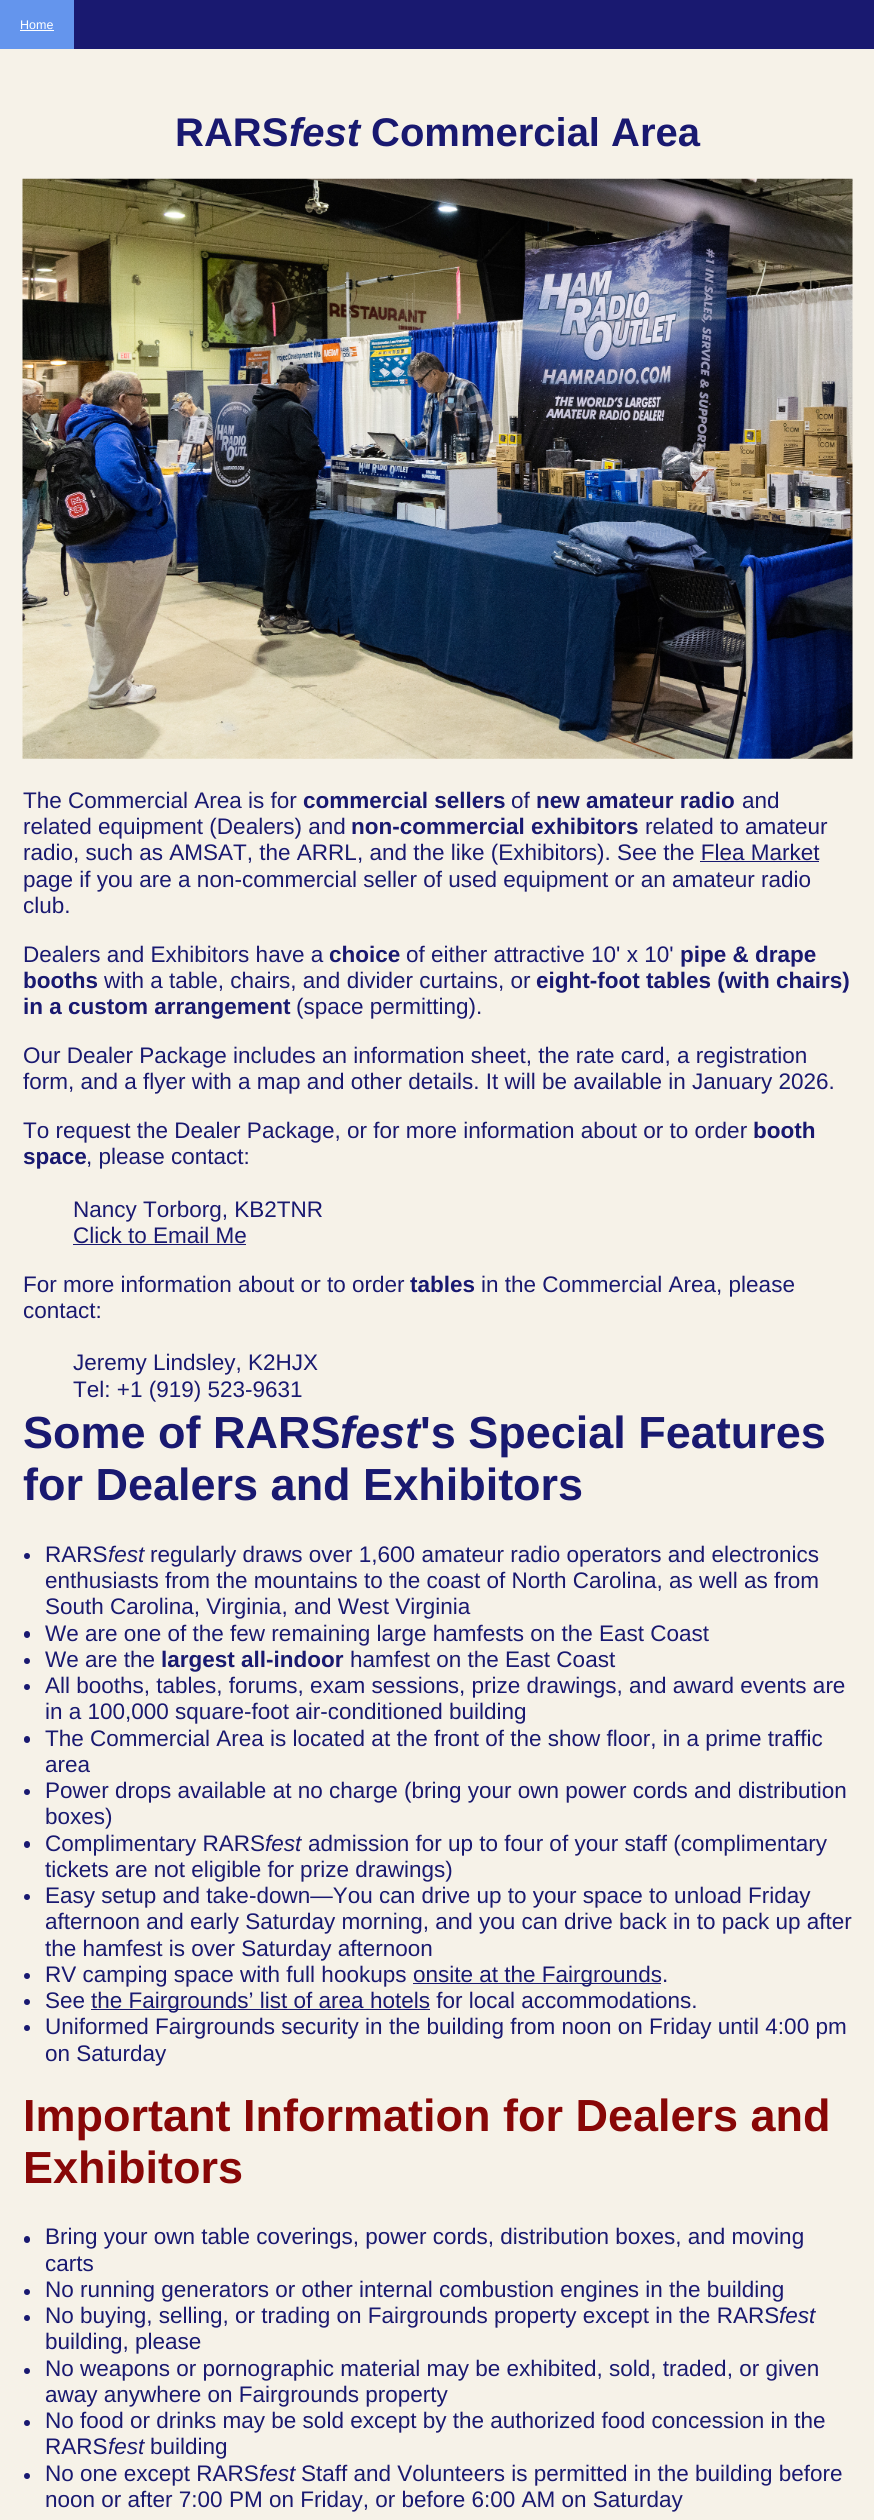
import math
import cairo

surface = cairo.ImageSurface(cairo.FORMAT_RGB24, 874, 2520)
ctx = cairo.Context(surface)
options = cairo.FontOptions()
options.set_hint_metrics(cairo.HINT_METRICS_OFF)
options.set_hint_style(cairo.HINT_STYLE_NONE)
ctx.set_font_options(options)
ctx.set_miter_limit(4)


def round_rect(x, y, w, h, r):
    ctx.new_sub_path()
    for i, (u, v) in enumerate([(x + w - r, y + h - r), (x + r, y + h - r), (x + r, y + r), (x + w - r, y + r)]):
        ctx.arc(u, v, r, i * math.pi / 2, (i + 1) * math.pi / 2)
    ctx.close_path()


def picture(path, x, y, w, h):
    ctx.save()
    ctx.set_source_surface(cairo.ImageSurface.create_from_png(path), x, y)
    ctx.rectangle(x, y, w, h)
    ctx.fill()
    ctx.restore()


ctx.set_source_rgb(0.961, 0.949, 0.91)
ctx.paint()
ctx.set_source_rgb(0.098, 0.098, 0.439)
ctx.rectangle(74, 0, 800, 49)
ctx.fill()
ctx.set_source_rgb(0.392, 0.584, 0.929)
ctx.rectangle(0, 0, 74, 49)
ctx.fill()
ctx.select_font_face("Liberation Sans")
ctx.set_font_size(12.5)
ctx.set_source_rgb(1, 1, 1)
ctx.move_to(20, 29)
ctx.show_text("Home")
ctx.rectangle(20, 30, 34, 1)
ctx.fill()
ctx.select_font_face("Liberation Sans", cairo.FONT_SLANT_NORMAL, cairo.FONT_WEIGHT_BOLD)
ctx.set_font_size(40)
ctx.set_source_rgb(0.098, 0.098, 0.439)
ctx.move_to(175, 146)
ctx.show_text("RARS")
ctx.select_font_face("Liberation Sans", cairo.FONT_SLANT_ITALIC, cairo.FONT_WEIGHT_BOLD)
ctx.move_to(289, 146)
ctx.show_text("fest")
ctx.select_font_face("Liberation Sans", cairo.FONT_SLANT_NORMAL, cairo.FONT_WEIGHT_BOLD)
ctx.move_to(371, 146)
ctx.show_text("Commercial Area")
picture("img1.png", 22, 178, 831, 581)
ctx.select_font_face("Liberation Sans")
ctx.set_font_size(22.5)
ctx.move_to(23, 808)
ctx.show_text("The Commercial Area is for")
ctx.select_font_face("Liberation Sans", cairo.FONT_SLANT_NORMAL, cairo.FONT_WEIGHT_BOLD)
ctx.move_to(303, 808)
ctx.show_text("commercial sellers")
ctx.select_font_face("Liberation Sans")
ctx.move_to(511, 808)
ctx.show_text("of")
ctx.select_font_face("Liberation Sans", cairo.FONT_SLANT_NORMAL, cairo.FONT_WEIGHT_BOLD)
ctx.move_to(536, 808)
ctx.show_text("new amateur radio")
ctx.select_font_face("Liberation Sans")
ctx.move_to(742, 808)
ctx.show_text("and")
ctx.move_to(23, 834)
ctx.show_text("related equipment (Dealers) and")
ctx.select_font_face("Liberation Sans", cairo.FONT_SLANT_NORMAL, cairo.FONT_WEIGHT_BOLD)
ctx.move_to(351, 834)
ctx.show_text("non-commercial exhibitors")
ctx.select_font_face("Liberation Sans")
ctx.move_to(645, 834)
ctx.show_text("related to amateur")
ctx.move_to(23, 860)
ctx.show_text("radio, such as AMSAT, the ARRL, and the like (Exhibitors). See the Flea Market")
ctx.rectangle(700, 861, 119, 1)
ctx.fill()
ctx.move_to(23, 887)
ctx.show_text("page if you are a non-commercial seller of used equipment or an amateur radio")
ctx.move_to(23, 913)
ctx.show_text("club.")
ctx.move_to(23, 962)
ctx.show_text("Dealers and Exhibitors have a")
ctx.select_font_face("Liberation Sans", cairo.FONT_SLANT_NORMAL, cairo.FONT_WEIGHT_BOLD)
ctx.move_to(329, 962)
ctx.show_text("choice")
ctx.select_font_face("Liberation Sans")
ctx.move_to(406, 962)
ctx.show_text("of either attractive 10' x 10'")
ctx.select_font_face("Liberation Sans", cairo.FONT_SLANT_NORMAL, cairo.FONT_WEIGHT_BOLD)
ctx.move_to(680, 962)
ctx.show_text("pipe & drape")
ctx.move_to(23, 988)
ctx.show_text("booths")
ctx.select_font_face("Liberation Sans")
ctx.move_to(104, 988)
ctx.show_text("with a table, chairs, and divider curtains, or")
ctx.select_font_face("Liberation Sans", cairo.FONT_SLANT_NORMAL, cairo.FONT_WEIGHT_BOLD)
ctx.move_to(536, 988)
ctx.show_text("eight-foot tables (with chairs)")
ctx.move_to(23, 1014)
ctx.show_text("in a custom arrangement")
ctx.select_font_face("Liberation Sans")
ctx.move_to(296, 1014)
ctx.show_text("(space permitting).")
ctx.move_to(23, 1063)
ctx.show_text("Our Dealer Package includes an information sheet, the rate card, a registration")
ctx.move_to(23, 1089)
ctx.show_text("form, and a flyer with a map and other details. It will be available in January 2026.")
ctx.move_to(23, 1138)
ctx.show_text("To request the Dealer Package, or for more information about or to order")
ctx.select_font_face("Liberation Sans", cairo.FONT_SLANT_NORMAL, cairo.FONT_WEIGHT_BOLD)
ctx.move_to(753, 1138)
ctx.show_text("booth")
ctx.move_to(23, 1164)
ctx.show_text("space")
ctx.select_font_face("Liberation Sans")
ctx.move_to(86, 1164)
ctx.show_text(", please contact:")
ctx.move_to(73, 1217)
ctx.show_text("Nancy Torborg, KB2TNR")
ctx.move_to(73, 1243)
ctx.show_text("Click to Email Me")
ctx.rectangle(73, 1244, 173, 1)
ctx.fill()
ctx.move_to(23, 1292)
ctx.show_text("For more information about or to order")
ctx.select_font_face("Liberation Sans", cairo.FONT_SLANT_NORMAL, cairo.FONT_WEIGHT_BOLD)
ctx.move_to(410, 1292)
ctx.show_text("tables")
ctx.select_font_face("Liberation Sans")
ctx.move_to(481, 1292)
ctx.show_text("in the Commercial Area, please")
ctx.move_to(23, 1318)
ctx.show_text("contact:")
ctx.move_to(73, 1370)
ctx.show_text("Jeremy Lindsley, K2HJX")
ctx.move_to(73, 1397)
ctx.show_text("Tel: +1 (919) 523-9631")
ctx.select_font_face("Liberation Sans", cairo.FONT_SLANT_NORMAL, cairo.FONT_WEIGHT_BOLD)
ctx.set_font_size(45)
ctx.move_to(23, 1448)
ctx.show_text("Some of RARS")
ctx.select_font_face("Liberation Sans", cairo.FONT_SLANT_ITALIC, cairo.FONT_WEIGHT_BOLD)
ctx.move_to(340, 1448)
ctx.show_text("fest")
ctx.select_font_face("Liberation Sans", cairo.FONT_SLANT_NORMAL, cairo.FONT_WEIGHT_BOLD)
ctx.move_to(420, 1448)
ctx.show_text("'s Special Features")
ctx.move_to(23, 1500)
ctx.show_text("for Dealers and Exhibitors")
ctx.new_path()
ctx.arc(27, 1556, 3, 0, 2 * math.pi)
ctx.fill()
ctx.select_font_face("Liberation Sans")
ctx.set_font_size(22.5)
ctx.move_to(45, 1562)
ctx.show_text("RARS")
ctx.select_font_face("Liberation Sans", cairo.FONT_SLANT_ITALIC)
ctx.move_to(108, 1562)
ctx.show_text("fest")
ctx.select_font_face("Liberation Sans")
ctx.move_to(150, 1562)
ctx.show_text("regularly draws over 1,600 amateur radio operators and electronics")
ctx.move_to(45, 1588)
ctx.show_text("enthusiasts from the mountains to the coast of North Carolina, as well as from")
ctx.move_to(45, 1614)
ctx.show_text("South Carolina, Virginia, and West Virginia")
round_rect(24, 1631, 6, 7, 3)
ctx.fill()
ctx.move_to(45, 1641)
ctx.show_text("We are one of the few remaining large hamfests on the East Coast")
ctx.new_path()
ctx.arc(27, 1661, 3, 0, 2 * math.pi)
ctx.fill()
ctx.move_to(45, 1667)
ctx.show_text("We are the")
ctx.select_font_face("Liberation Sans", cairo.FONT_SLANT_NORMAL, cairo.FONT_WEIGHT_BOLD)
ctx.move_to(161, 1667)
ctx.show_text("largest all-indoor")
ctx.select_font_face("Liberation Sans")
ctx.move_to(350, 1667)
ctx.show_text("hamfest on the East Coast")
ctx.new_path()
ctx.arc(27, 1687, 3, 0, 2 * math.pi)
ctx.fill()
ctx.move_to(45, 1693)
ctx.show_text("All booths, tables, forums, exam sessions, prize drawings, and award events are")
ctx.move_to(45, 1719)
ctx.show_text("in a 100,000 square-foot air-conditioned building")
round_rect(24, 1736, 6, 7, 3)
ctx.fill()
ctx.move_to(45, 1746)
ctx.show_text("The Commercial Area is located at the front of the show floor, in a prime traffic")
ctx.move_to(45, 1772)
ctx.show_text("area")
ctx.new_path()
ctx.arc(27, 1792, 3, 0, 2 * math.pi)
ctx.fill()
ctx.move_to(45, 1798)
ctx.show_text("Power drops available at no charge (bring your own power cords and distribution")
ctx.move_to(45, 1824)
ctx.show_text("boxes)")
round_rect(24, 1841, 6, 7, 3)
ctx.fill()
ctx.move_to(45, 1851)
ctx.show_text("Complimentary RARS")
ctx.select_font_face("Liberation Sans", cairo.FONT_SLANT_ITALIC)
ctx.move_to(265, 1851)
ctx.show_text("fest")
ctx.select_font_face("Liberation Sans")
ctx.move_to(308, 1851)
ctx.show_text("admission for up to four of your staff (complimentary")
ctx.move_to(45, 1877)
ctx.show_text("tickets are not eligible for prize drawings)")
ctx.new_path()
ctx.arc(27, 1897, 3, 0, 2 * math.pi)
ctx.fill()
ctx.move_to(45, 1903)
ctx.show_text("Easy setup and take-down—You can drive up to your space to unload Friday")
ctx.move_to(45, 1929)
ctx.show_text("afternoon and early Saturday morning, and you can drive back in to pack up after")
ctx.move_to(45, 1956)
ctx.show_text("the hamfest is over Saturday afternoon")
ctx.new_path()
ctx.arc(27, 1976, 3, 0, 2 * math.pi)
ctx.fill()
ctx.move_to(45, 1982)
ctx.show_text("RV camping space with full hookups")
ctx.rectangle(413, 1983, 248, 1)
ctx.fill()
ctx.move_to(413, 1982)
ctx.show_text("onsite at the Fairgrounds.")
ctx.new_path()
ctx.arc(27, 2002, 3, 0, 2 * math.pi)
ctx.fill()
ctx.move_to(45, 2008)
ctx.show_text("See")
ctx.rectangle(91, 2009, 339, 1)
ctx.fill()
ctx.move_to(91, 2008)
ctx.show_text("the Fairgrounds’ list of area hotels for local accommodations.")
ctx.new_path()
ctx.arc(27, 2028, 3, 0, 2 * math.pi)
ctx.fill()
ctx.move_to(45, 2034)
ctx.show_text("Uniformed Fairgrounds security in the building from noon on Friday until 4:00 pm")
ctx.move_to(45, 2061)
ctx.show_text("on Saturday")
ctx.select_font_face("Liberation Sans", cairo.FONT_SLANT_NORMAL, cairo.FONT_WEIGHT_BOLD)
ctx.set_font_size(45)
ctx.set_source_rgb(0.533, 0.031, 0.031)
ctx.move_to(23, 2131)
ctx.show_text("Important Information for Dealers and")
ctx.move_to(23, 2183)
ctx.show_text("Exhibitors")
ctx.set_source_rgb(0.098, 0.098, 0.439)
round_rect(24, 2236, 6, 7, 3)
ctx.fill()
ctx.select_font_face("Liberation Sans")
ctx.set_font_size(22.5)
ctx.move_to(45, 2244)
ctx.show_text("Bring your own table coverings, power cords, distribution boxes, and moving")
ctx.move_to(45, 2271)
ctx.show_text("carts")
ctx.new_path()
ctx.arc(27, 2292, 3, 0, 2 * math.pi)
ctx.fill()
ctx.move_to(45, 2297)
ctx.show_text("No running generators or other internal combustion engines in the building")
ctx.new_path()
ctx.arc(27, 2318, 3, 0, 2 * math.pi)
ctx.fill()
ctx.move_to(45, 2323)
ctx.show_text("No buying, selling, or trading on Fairgrounds property except in the RARS")
ctx.select_font_face("Liberation Sans", cairo.FONT_SLANT_ITALIC)
ctx.move_to(779, 2323)
ctx.show_text("fest")
ctx.select_font_face("Liberation Sans")
ctx.move_to(45, 2349)
ctx.show_text("building, please")
ctx.new_path()
ctx.arc(27, 2371, 3, 0, 2 * math.pi)
ctx.fill()
ctx.move_to(45, 2376)
ctx.show_text("No weapons or pornographic material may be exhibited, sold, traded, or given")
ctx.move_to(45, 2402)
ctx.show_text("away anywhere on Fairgrounds property")
ctx.new_path()
ctx.arc(27, 2423, 3, 0, 2 * math.pi)
ctx.fill()
ctx.move_to(45, 2428)
ctx.show_text("No food or drinks may be sold except by the authorized food concession in the")
ctx.move_to(45, 2454)
ctx.show_text("RARS")
ctx.select_font_face("Liberation Sans", cairo.FONT_SLANT_ITALIC)
ctx.move_to(108, 2454)
ctx.show_text("fest")
ctx.select_font_face("Liberation Sans")
ctx.move_to(150, 2454)
ctx.show_text("building")
ctx.new_path()
ctx.arc(27, 2476, 3, 0, 2 * math.pi)
ctx.fill()
ctx.move_to(45, 2481)
ctx.show_text("No one except RARS")
ctx.select_font_face("Liberation Sans", cairo.FONT_SLANT_ITALIC)
ctx.move_to(259, 2481)
ctx.show_text("fest")
ctx.select_font_face("Liberation Sans")
ctx.move_to(301, 2481)
ctx.show_text("Staff and Volunteers is permitted in the building before")
ctx.move_to(45, 2507)
ctx.show_text("noon or after 7:00 PM on Friday, or before 6:00 AM on Saturday")
surface.write_to_png("page.png")
